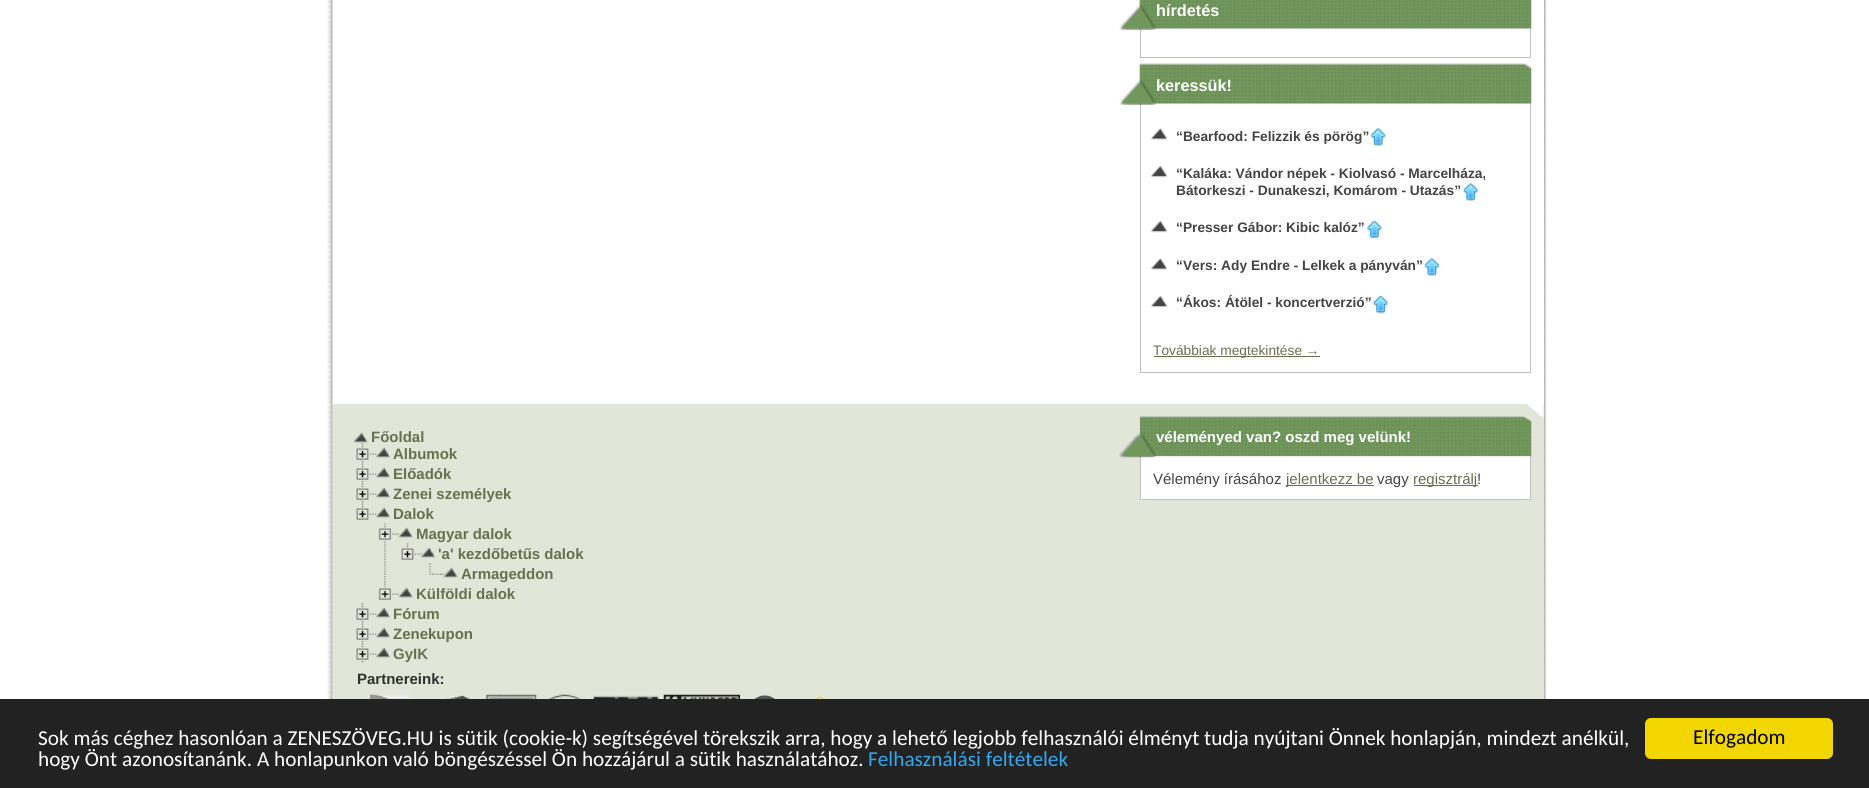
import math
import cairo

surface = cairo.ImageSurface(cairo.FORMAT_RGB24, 1869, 788)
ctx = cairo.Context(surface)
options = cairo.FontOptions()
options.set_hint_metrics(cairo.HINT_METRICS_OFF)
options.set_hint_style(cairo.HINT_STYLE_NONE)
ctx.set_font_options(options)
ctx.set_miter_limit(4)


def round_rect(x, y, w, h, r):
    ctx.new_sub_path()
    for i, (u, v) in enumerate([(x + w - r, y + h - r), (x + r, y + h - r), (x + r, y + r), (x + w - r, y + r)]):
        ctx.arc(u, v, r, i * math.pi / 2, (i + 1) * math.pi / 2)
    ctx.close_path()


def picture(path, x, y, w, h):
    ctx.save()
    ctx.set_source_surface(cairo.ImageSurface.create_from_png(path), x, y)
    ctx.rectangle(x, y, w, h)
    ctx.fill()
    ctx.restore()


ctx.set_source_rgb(1, 1, 1)
ctx.paint()
picture("img1.png", 327, 0, 1220, 699)
ctx.set_source_rgb(1, 1, 1)
ctx.rectangle(1543, 0, 1, 404)
ctx.fill()
ctx.rectangle(1140.5, -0.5, 390, 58)
ctx.set_source_rgb(0.749, 0.749, 0.749)
ctx.set_line_width(1)
ctx.stroke()
picture("img2.png", 1119, 0, 413, 30)
ctx.select_font_face("Liberation Sans", cairo.FONT_SLANT_NORMAL, cairo.FONT_WEIGHT_BOLD)
ctx.set_font_size(16.25)
ctx.set_source_rgb(1, 1, 1)
ctx.move_to(1156, 16)
ctx.show_text("hírdetés")
ctx.rectangle(1140.5, 64.5, 390, 308)
ctx.set_source_rgb(0.749, 0.749, 0.749)
ctx.stroke()
picture("img3.png", 1119, 63, 413, 42)
ctx.set_source_rgb(1, 1, 1)
ctx.move_to(1156, 91)
ctx.show_text("keressük!")
picture("img4.png", 1151, 128, 17, 12)
ctx.set_font_size(13.75)
ctx.set_source_rgb(0.267, 0.267, 0.267)
ctx.move_to(1176, 141)
ctx.show_text("“Bearfood: Felizzik és pörög”")
picture("img5.png", 1371, 128, 15, 18)
picture("img6.png", 1151, 166, 17, 12)
ctx.move_to(1176, 178)
ctx.show_text("“Kaláka: Vándor népek - Kiolvasó - Marcelháza,")
ctx.move_to(1176, 195)
ctx.show_text("Bátorkeszi - Dunakeszi, Komárom - Utazás”")
picture("img7.png", 1463, 183, 15, 18)
picture("img6.png", 1151, 221, 17, 12)
ctx.move_to(1176, 232)
ctx.show_text("“Presser Gábor: Kibic kalóz”")
picture("img8.png", 1367, 220, 15, 19)
picture("img4.png", 1151, 258, 17, 12)
ctx.move_to(1176, 270)
ctx.show_text("“Vers: Ady Endre - Lelkek a pányván”")
picture("img9.png", 1424, 258, 15, 18)
picture("img6.png", 1151, 296, 17, 12)
ctx.move_to(1176, 307)
ctx.show_text("“Ákos: Átölel - koncertverzió”")
picture("img10.png", 1373, 295, 15, 19)
ctx.set_source_rgb(0.404, 0.443, 0.31)
ctx.rectangle(1154, 356, 166, 1)
ctx.fill()
ctx.select_font_face("Liberation Sans")
ctx.move_to(1153, 355)
ctx.show_text("Továbbiak megtekintése →")
ctx.set_source_rgb(0.886, 0.902, 0.847)
ctx.rectangle(333, 404, 1211, 295)
ctx.fill()
picture("img11.png", 1526, 403, 18, 16)
picture("img12.png", 353, 432, 15, 11)
ctx.select_font_face("Liberation Sans", cairo.FONT_SLANT_NORMAL, cairo.FONT_WEIGHT_BOLD)
ctx.set_font_size(15)
ctx.set_source_rgb(0.404, 0.443, 0.31)
ctx.move_to(371, 442)
ctx.show_text("Főoldal")
picture("img13.png", 356, 443, 21, 20)
picture("img14.png", 376, 447, 15, 11)
ctx.move_to(393, 459)
ctx.show_text("Albumok")
picture("img13.png", 356, 463, 21, 20)
picture("img14.png", 376, 467, 15, 11)
ctx.move_to(393, 479)
ctx.show_text("Előadók")
picture("img13.png", 356, 483, 21, 20)
picture("img14.png", 376, 487, 15, 11)
ctx.move_to(393, 499)
ctx.show_text("Zenei személyek")
picture("img15.png", 356, 503, 21, 17)
picture("img14.png", 376, 507, 15, 11)
ctx.move_to(393, 519)
ctx.show_text("Dalok")
picture("img16.png", 378, 523, 21, 20)
picture("img17.png", 398, 527, 15, 11)
ctx.move_to(416, 539)
ctx.show_text("Magyar dalok")
picture("img18.png", 384, 543, 2, 20)
picture("img19.png", 401, 543, 21, 17)
picture("img20.png", 421, 547, 15, 11)
ctx.move_to(438, 559)
ctx.show_text("'a' kezdőbetűs dalok")
picture("img18.png", 384, 563, 2, 20)
picture("img21.png", 429, 563, 15, 12)
picture("img22.png", 443, 567, 15, 11)
ctx.move_to(461, 579)
ctx.show_text("Armageddon")
picture("img23.png", 378, 583, 21, 17)
picture("img17.png", 398, 587, 15, 11)
ctx.move_to(416, 599)
ctx.show_text("Külföldi dalok")
picture("img13.png", 356, 603, 21, 20)
picture("img14.png", 376, 607, 15, 11)
ctx.move_to(393, 619)
ctx.show_text("Fórum")
picture("img13.png", 356, 623, 21, 20)
picture("img14.png", 376, 627, 15, 11)
ctx.move_to(393, 639)
ctx.show_text("Zenekupon")
picture("img13.png", 356, 643, 21, 20)
picture("img14.png", 376, 647, 15, 11)
ctx.move_to(393, 659)
ctx.show_text("GyIK")
ctx.set_source_rgb(1, 1, 1)
ctx.rectangle(1140.5, 416.5, 390, 83)
ctx.fill_preserve()
ctx.set_source_rgb(0.749, 0.749, 0.749)
ctx.stroke()
picture("img24.png", 1119, 416, 413, 42)
ctx.set_source_rgb(1, 1, 1)
ctx.move_to(1156, 442)
ctx.show_text("véleményed van? oszd meg velünk!")
ctx.select_font_face("Liberation Sans")
ctx.set_source_rgb(0.267, 0.267, 0.267)
ctx.move_to(1153, 484)
ctx.show_text("Vélemény írásához")
ctx.set_source_rgb(0.404, 0.443, 0.31)
ctx.rectangle(1286, 485, 88, 1)
ctx.fill()
ctx.move_to(1286, 484)
ctx.show_text("jelentkezz be")
ctx.set_source_rgb(0.267, 0.267, 0.267)
ctx.move_to(1377, 484)
ctx.show_text("vagy")
ctx.set_source_rgb(0.404, 0.443, 0.31)
ctx.rectangle(1414, 485, 64, 1)
ctx.fill()
ctx.move_to(1413, 484)
ctx.show_text("regisztrálj")
ctx.set_source_rgb(0.267, 0.267, 0.267)
ctx.move_to(1477, 484)
ctx.show_text("!")
ctx.select_font_face("Liberation Sans", cairo.FONT_SLANT_NORMAL, cairo.FONT_WEIGHT_BOLD)
ctx.set_source_rgb(0.188, 0.192, 0.188)
ctx.move_to(357, 684)
ctx.show_text("Partnereink:")
picture("img25.png", 370, 694, 42, 5)
picture("img26.png", 421, 695, 55, 4)
picture("img27.png", 486, 694, 51, 5)
picture("img28.png", 541, 694, 45, 5)
picture("img29.png", 591, 695, 69, 4)
picture("img30.png", 663, 694, 77, 5)
picture("img31.png", 754, 695, 21, 4)
picture("img32.png", 816, 695, 9, 4)
ctx.set_source_rgb(0.133, 0.133, 0.133)
ctx.rectangle(0, 699, 1869, 89)
ctx.fill()
ctx.select_font_face("Carlito")
ctx.set_font_size(21.25)
ctx.set_source_rgb(1, 1, 1)
ctx.move_to(38, 745)
ctx.show_text("Sok más céghez hasonlóan a ZENESZÖVEG.HU is sütik (cookie-k) segítségével törekszik arra, hogy a lehető legjobb felhasználói élményt tudja nyújtani Önnek honlapján, mindezt anélkül,")
ctx.move_to(38, 766)
ctx.show_text("hogy Önt azonosítanánk. A honlapunkon való böngészéssel Ön hozzájárul a sütik használatához.")
ctx.set_source_rgb(0.192, 0.659, 0.941)
ctx.move_to(868, 766)
ctx.show_text("Felhasználási feltételek")
ctx.set_source_rgb(0.945, 0.839, 0)
round_rect(1645, 718, 188, 41, 6)
ctx.fill()
ctx.set_source_rgb(0, 0, 0)
ctx.move_to(1693, 744)
ctx.show_text("Elfogadom")
surface.write_to_png("page.png")
